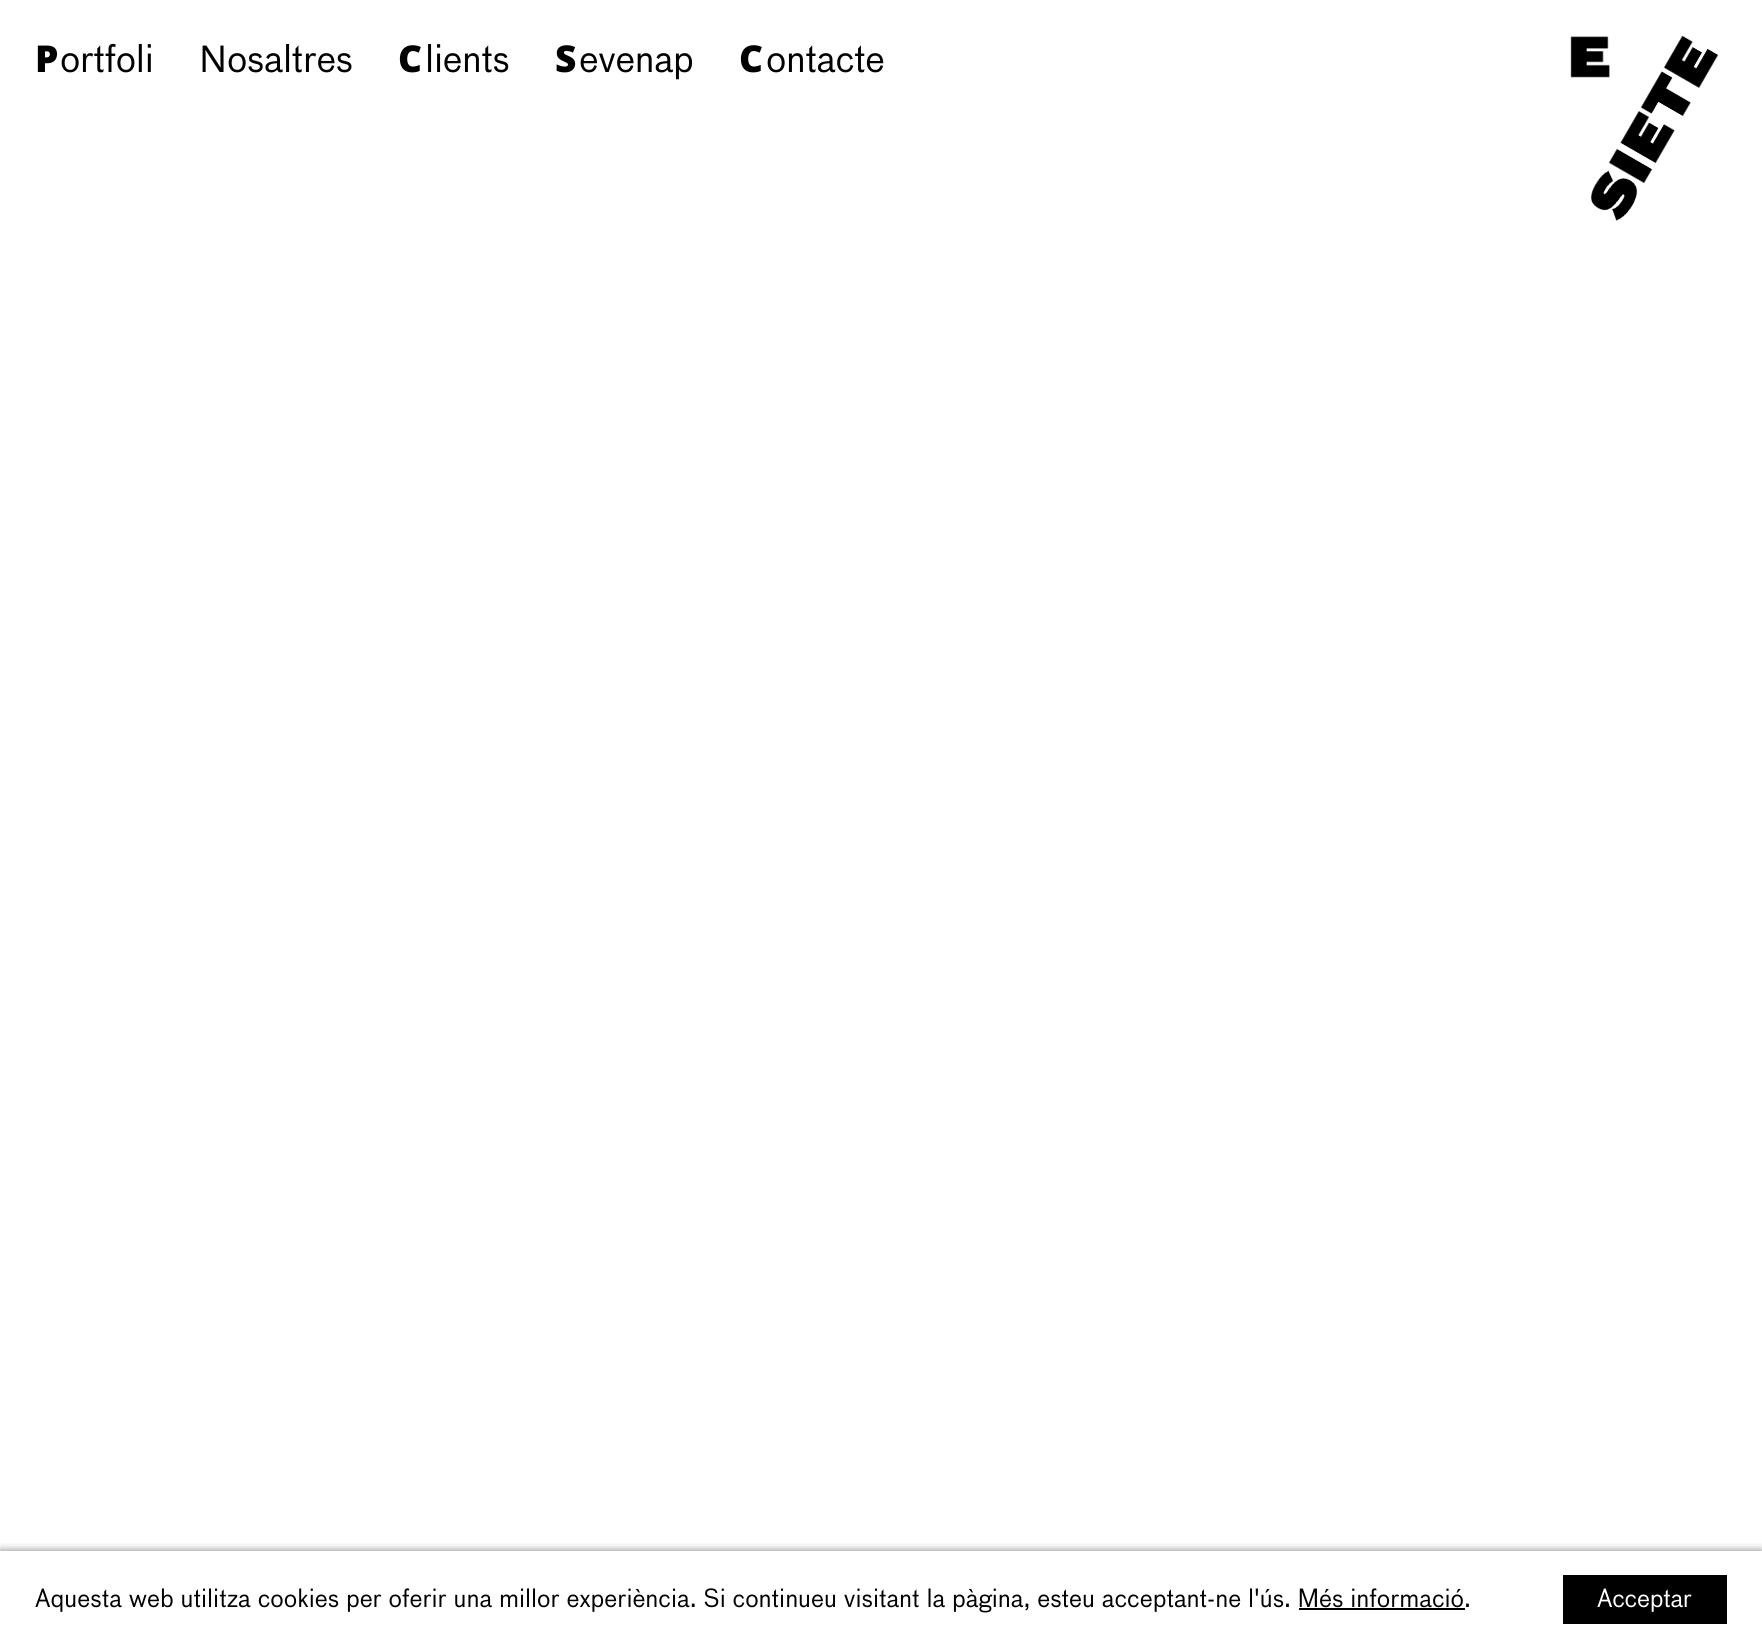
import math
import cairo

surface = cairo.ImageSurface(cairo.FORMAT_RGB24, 1762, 1650)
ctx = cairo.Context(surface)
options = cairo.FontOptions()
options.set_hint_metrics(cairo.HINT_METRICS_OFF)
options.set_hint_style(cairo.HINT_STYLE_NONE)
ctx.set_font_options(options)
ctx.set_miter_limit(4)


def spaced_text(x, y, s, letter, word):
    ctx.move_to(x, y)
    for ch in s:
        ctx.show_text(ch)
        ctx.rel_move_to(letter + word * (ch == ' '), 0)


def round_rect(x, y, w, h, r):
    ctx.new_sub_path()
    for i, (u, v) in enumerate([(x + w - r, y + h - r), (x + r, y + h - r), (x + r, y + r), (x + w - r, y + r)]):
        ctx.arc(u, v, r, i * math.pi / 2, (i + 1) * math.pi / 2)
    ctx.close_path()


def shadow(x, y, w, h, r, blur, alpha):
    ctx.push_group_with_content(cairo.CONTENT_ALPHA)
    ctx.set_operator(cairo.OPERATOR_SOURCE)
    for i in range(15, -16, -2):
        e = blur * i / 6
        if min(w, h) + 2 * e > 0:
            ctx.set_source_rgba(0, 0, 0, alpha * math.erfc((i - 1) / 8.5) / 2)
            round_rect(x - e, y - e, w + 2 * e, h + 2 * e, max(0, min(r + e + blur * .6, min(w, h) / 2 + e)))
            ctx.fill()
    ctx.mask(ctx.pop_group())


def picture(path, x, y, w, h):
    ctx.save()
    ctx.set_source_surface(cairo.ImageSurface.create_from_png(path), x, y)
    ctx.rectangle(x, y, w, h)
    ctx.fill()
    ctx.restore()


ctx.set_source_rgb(1, 1, 1)
ctx.paint()
ctx.select_font_face("Noto Sans Black")
ctx.set_font_size(37)
ctx.set_source_rgb(0, 0, 0)
spaced_text(35, 72, "P", -0.25, 0)
ctx.select_font_face("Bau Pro")
spaced_text(60, 72, "ortfoli", -0.25, 0)
ctx.select_font_face("Noto Sans")
spaced_text(199, 72, "N", -0.25, 0)
ctx.select_font_face("Bau Pro")
spaced_text(227, 72, "osaltres", -0.25, 0)
ctx.select_font_face("Noto Sans Black")
spaced_text(398, 72, "C", -0.25, 0)
ctx.select_font_face("Bau Pro")
spaced_text(425, 72, "lients", -0.25, 0)
ctx.select_font_face("Noto Sans Black")
spaced_text(555, 72, "S", -0.25, 0)
ctx.select_font_face("Bau Pro")
spaced_text(579, 72, "evenap", -0.25, 0)
ctx.select_font_face("Noto Sans Black")
spaced_text(739, 72, "C", -0.25, 0)
ctx.select_font_face("Bau Pro")
spaced_text(766, 72, "ontacte", -0.25, 0)
picture("img1.png", 1570, 36, 40, 42)
picture("img2.png", 1591, 35, 127, 186)
ctx.save()
ctx.rectangle(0, 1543, 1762, 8)
ctx.clip()
ctx.set_source_rgb(0, 0, 0)
shadow(0, 1551, 1762, 99, 0, 4.5, 0.5)
ctx.restore()
ctx.set_font_size(24.5)
ctx.move_to(35, 1607)
ctx.show_text("Aquesta web utilitza cookies per oferir una millor experiència. Si continueu visitant la pàgina, esteu acceptant-ne l'ús. Més informació.")
ctx.rectangle(1299, 1608, 166, 2)
ctx.fill()
ctx.rectangle(1563, 1575, 164, 49)
ctx.fill()
ctx.set_source_rgb(1, 1, 1)
spaced_text(1597, 1607, "Acceptar", -0.25, 0)
surface.write_to_png("page.png")
